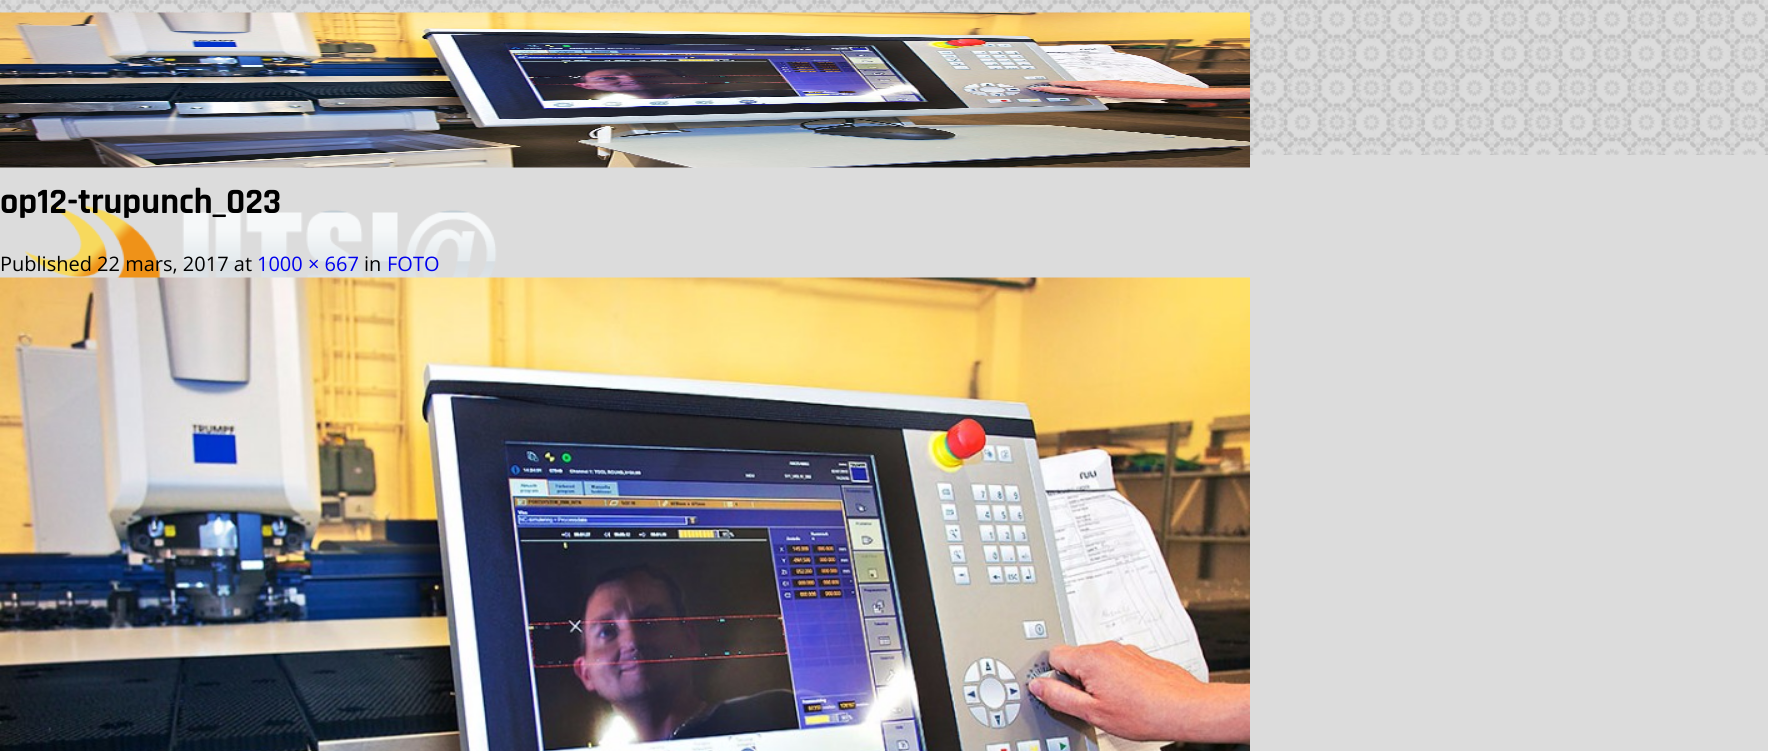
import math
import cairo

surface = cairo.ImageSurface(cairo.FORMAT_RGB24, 1768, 751)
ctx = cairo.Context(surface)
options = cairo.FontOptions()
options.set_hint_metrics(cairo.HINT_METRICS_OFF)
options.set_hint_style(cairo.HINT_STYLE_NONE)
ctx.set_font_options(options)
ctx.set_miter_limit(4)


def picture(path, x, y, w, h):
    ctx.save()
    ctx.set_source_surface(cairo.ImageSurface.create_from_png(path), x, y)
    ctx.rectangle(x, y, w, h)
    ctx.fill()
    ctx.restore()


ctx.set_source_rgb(0.863, 0.863, 0.863)
ctx.paint()
picture("img1.png", 0, 0, 1768, 155)
picture("img2.png", 0, 12, 1250, 156)
picture("img3.png", 25, 205, 472, 73)
ctx.select_font_face("Rajdhani", cairo.FONT_SLANT_NORMAL, cairo.FONT_WEIGHT_BOLD)
ctx.set_font_size(36)
ctx.set_source_rgb(0, 0, 0)
ctx.move_to(0, 213)
ctx.show_text("op12-trupunch_023")
ctx.select_font_face("Open Sans")
ctx.set_font_size(20)
ctx.move_to(0, 271)
ctx.show_text("Published 22 mars, 2017 at")
ctx.set_source_rgb(0, 0, 0.933)
ctx.move_to(257, 271)
ctx.show_text("1000 × 667")
ctx.set_source_rgb(0, 0, 0)
ctx.move_to(364, 271)
ctx.show_text("in")
ctx.set_source_rgb(0, 0, 0.933)
ctx.move_to(387, 271)
ctx.show_text("FOTO")
picture("img4.png", 0, 277, 1250, 474)
surface.write_to_png("page.png")
